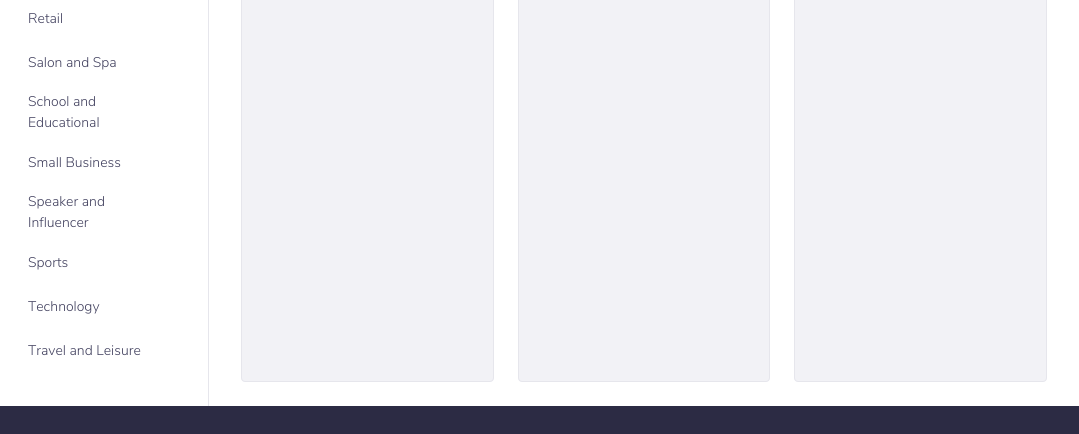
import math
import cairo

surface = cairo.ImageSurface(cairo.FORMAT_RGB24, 1079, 434)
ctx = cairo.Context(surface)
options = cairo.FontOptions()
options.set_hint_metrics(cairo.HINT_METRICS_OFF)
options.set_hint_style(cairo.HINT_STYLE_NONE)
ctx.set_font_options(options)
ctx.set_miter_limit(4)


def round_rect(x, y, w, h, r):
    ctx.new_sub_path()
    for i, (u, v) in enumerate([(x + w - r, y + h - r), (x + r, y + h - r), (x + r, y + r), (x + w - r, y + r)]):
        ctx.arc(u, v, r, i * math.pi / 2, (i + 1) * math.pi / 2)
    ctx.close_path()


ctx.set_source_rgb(1, 1, 1)
ctx.paint()
ctx.set_source_rgb(0.902, 0.902, 0.925)
ctx.rectangle(208, 0, 1, 406)
ctx.fill()
ctx.select_font_face("Nunito Sans Light")
ctx.set_font_size(14)
ctx.set_source_rgb(0.251, 0.247, 0.365)
ctx.move_to(28, 23)
ctx.show_text("Retail")
ctx.move_to(28, 67)
ctx.show_text("Salon and Spa")
ctx.move_to(28, 106)
ctx.show_text("School and")
ctx.move_to(28, 127)
ctx.show_text("Educational")
ctx.move_to(28, 167)
ctx.show_text("Small Business")
ctx.move_to(28, 206)
ctx.show_text("Speaker and")
ctx.move_to(28, 227)
ctx.show_text("Influencer")
ctx.move_to(28, 267)
ctx.show_text("Sports")
ctx.move_to(28, 311)
ctx.show_text("Technology")
ctx.move_to(28, 355)
ctx.show_text("Travel and Leisure")
ctx.set_source_rgb(0.949, 0.949, 0.961)
round_rect(241.5, -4.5, 252, 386, 3.5)
ctx.fill_preserve()
ctx.set_source_rgb(0.902, 0.902, 0.925)
ctx.set_line_width(1)
ctx.stroke()
ctx.set_source_rgb(0.949, 0.949, 0.961)
round_rect(518.5, -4.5, 251, 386, 3.5)
ctx.fill_preserve()
ctx.set_source_rgb(0.902, 0.902, 0.925)
ctx.stroke()
ctx.set_source_rgb(0.949, 0.949, 0.961)
round_rect(794.5, -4.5, 252, 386, 3.5)
ctx.fill_preserve()
ctx.set_source_rgb(0.902, 0.902, 0.925)
ctx.stroke()
ctx.set_source_rgb(0.173, 0.169, 0.267)
ctx.rectangle(0, 406, 1079, 28)
ctx.fill()
surface.write_to_png("page.png")
